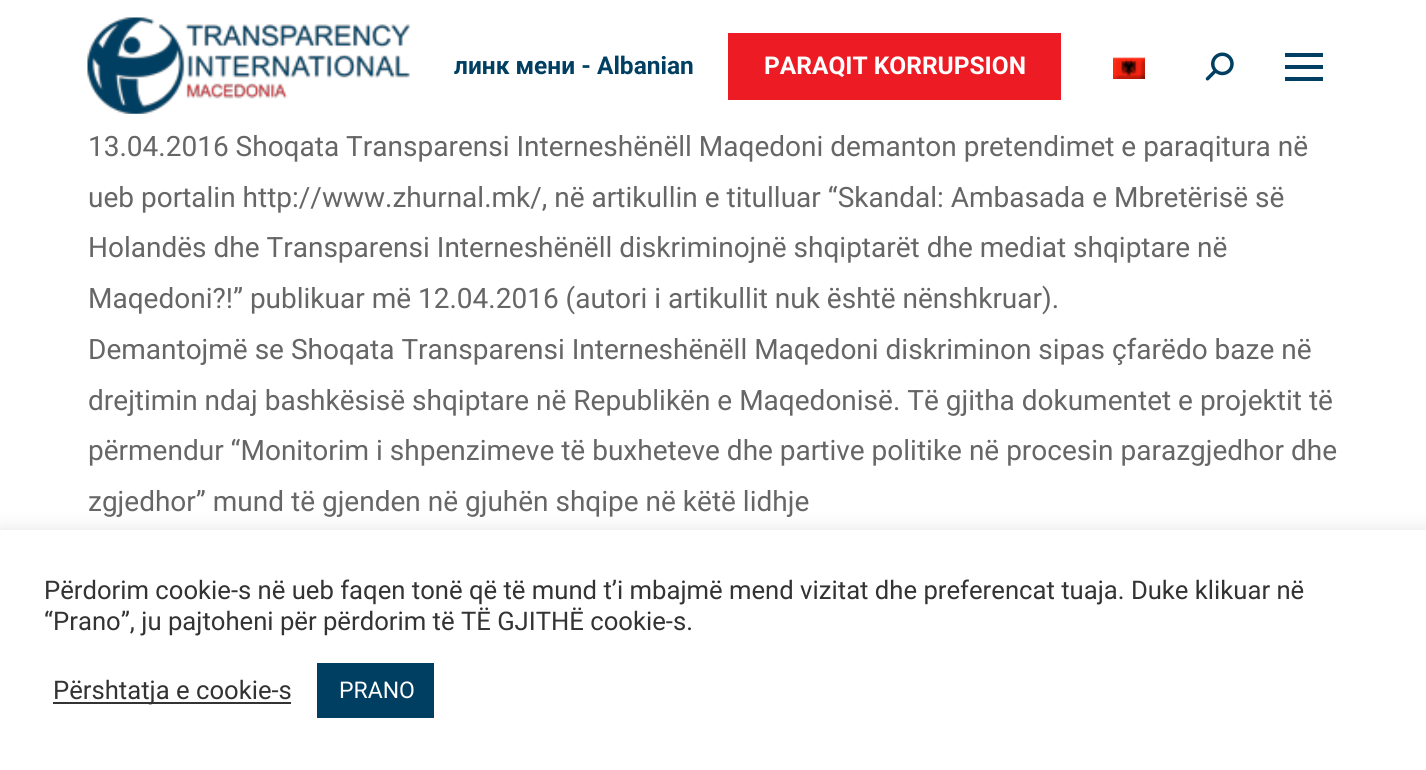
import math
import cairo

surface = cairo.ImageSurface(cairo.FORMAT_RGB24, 1426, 770)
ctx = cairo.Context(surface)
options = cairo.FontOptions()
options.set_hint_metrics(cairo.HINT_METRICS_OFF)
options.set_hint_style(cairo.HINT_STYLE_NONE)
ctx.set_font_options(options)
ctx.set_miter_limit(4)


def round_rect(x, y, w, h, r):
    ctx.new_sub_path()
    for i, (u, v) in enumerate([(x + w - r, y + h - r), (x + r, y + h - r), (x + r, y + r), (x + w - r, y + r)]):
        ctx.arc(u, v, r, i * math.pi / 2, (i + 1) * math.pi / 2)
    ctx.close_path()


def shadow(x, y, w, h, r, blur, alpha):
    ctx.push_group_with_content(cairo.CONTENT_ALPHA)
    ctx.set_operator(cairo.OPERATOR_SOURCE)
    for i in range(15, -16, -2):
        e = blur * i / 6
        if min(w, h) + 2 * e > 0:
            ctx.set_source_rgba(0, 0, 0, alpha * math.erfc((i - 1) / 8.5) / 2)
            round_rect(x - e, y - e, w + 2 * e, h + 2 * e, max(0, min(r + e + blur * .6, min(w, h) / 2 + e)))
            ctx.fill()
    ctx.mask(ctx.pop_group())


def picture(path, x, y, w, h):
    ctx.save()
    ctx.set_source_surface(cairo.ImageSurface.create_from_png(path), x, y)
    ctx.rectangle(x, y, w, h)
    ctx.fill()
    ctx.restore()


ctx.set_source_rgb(1, 1, 1)
ctx.paint()
picture("img1.png", 87, 17, 323, 97)
ctx.select_font_face("Roboto", cairo.FONT_SLANT_NORMAL, cairo.FONT_WEIGHT_BOLD)
ctx.set_font_size(24.5)
ctx.set_source_rgb(0, 0.247, 0.384)
ctx.move_to(454, 74)
ctx.show_text("линк мени - Albanian")
ctx.set_source_rgb(0.929, 0.11, 0.141)
ctx.rectangle(728, 33, 333, 67)
ctx.fill()
ctx.set_source_rgb(1, 1, 1)
ctx.move_to(764, 74)
ctx.show_text("PARAQIT KORRUPSION")
picture("img2.png", 1113, 57, 32, 22)
picture("img3.png", 1205, 52, 29, 29)
ctx.set_source_rgb(0, 0.247, 0.384)
ctx.rectangle(1285, 53, 38, 4)
ctx.fill()
ctx.rectangle(1285, 65, 38, 4)
ctx.fill()
ctx.rectangle(1285, 77, 38, 4)
ctx.fill()
ctx.select_font_face("Roboto")
ctx.set_font_size(28)
ctx.set_source_rgb(0.4, 0.4, 0.4)
ctx.move_to(88, 156)
ctx.show_text("13.04.2016 Shoqata Transparensi Interneshënëll Maqedoni demanton pretendimet e paraqitura në")
ctx.move_to(88, 207)
ctx.show_text("ueb portalin http://www.zhurnal.mk/, në artikullin e titulluar “Skandal: Ambasada e Mbretërisë së")
ctx.move_to(88, 257)
ctx.show_text("Holandës dhe Transparensi Interneshënëll diskriminojnë shqiptarët dhe mediat shqiptare në")
ctx.move_to(88, 308)
ctx.show_text("Maqedoni?!” publikuar më 12.04.2016 (autori i artikullit nuk është nënshkruar).")
ctx.move_to(88, 359)
ctx.show_text("Demantojmë se Shoqata Transparensi Interneshënëll Maqedoni diskriminon sipas çfarëdo baze në")
ctx.move_to(88, 410)
ctx.show_text("drejtimin ndaj bashkësisë shqiptare në Republikën e Maqedonisë. Të gjitha dokumentet e projektit të")
ctx.move_to(88, 460)
ctx.show_text("përmendur “Monitorim i shpenzimeve të buxheteve dhe partive politike në procesin parazgjedhor dhe")
ctx.move_to(88, 511)
ctx.show_text("zgjedhor” mund të gjenden në gjuhën shqipe në këtë lidhje")
ctx.set_source_rgb(0.675, 0.671, 0.671)
shadow(0, 529, 1426, 239, 0, 9, 0.3)
ctx.set_source_rgb(1, 1, 1)
ctx.rectangle(0, 530, 1426, 240)
ctx.fill()
ctx.set_font_size(25.65)
ctx.set_source_rgb(0.2, 0.2, 0.2)
ctx.move_to(44, 599)
ctx.show_text("Përdorim cookie-s në ueb faqen tonë që të mund t’i mbajmë mend vizitat dhe preferencat tuaja. Duke klikuar në")
ctx.move_to(44, 630)
ctx.show_text("“Prano”, ju pajtoheni për përdorim të TË GJITHË cookie-s.")
ctx.rectangle(53, 702, 238, 2)
ctx.fill()
ctx.move_to(53, 699)
ctx.show_text("Përshtatja e cookie-s")
ctx.set_source_rgb(0, 0.247, 0.384)
ctx.rectangle(317, 663, 117, 55)
ctx.fill()
ctx.set_font_size(23)
ctx.set_source_rgb(1, 1, 1)
ctx.move_to(339, 698)
ctx.show_text("PRANO")
surface.write_to_png("page.png")
